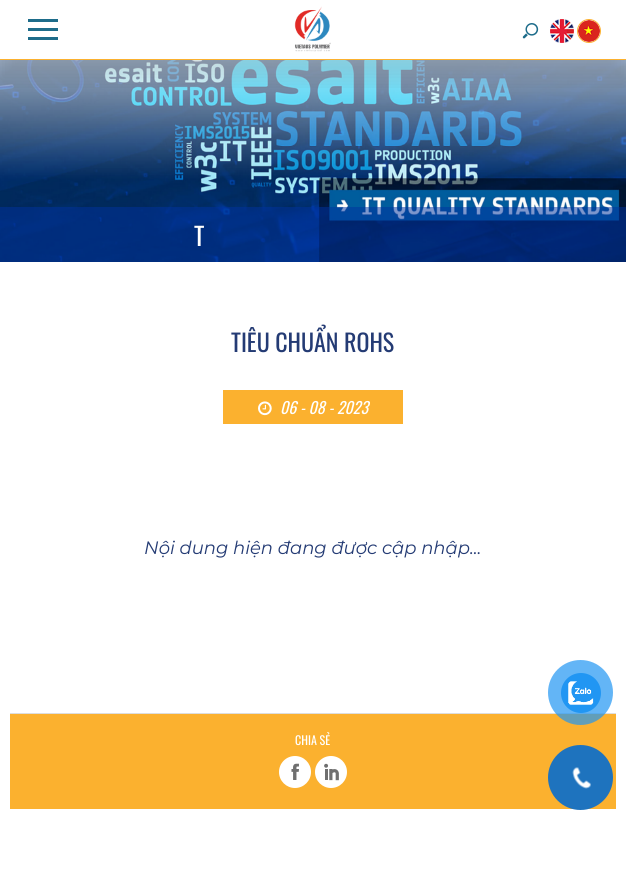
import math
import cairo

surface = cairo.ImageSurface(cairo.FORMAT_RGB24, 626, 893)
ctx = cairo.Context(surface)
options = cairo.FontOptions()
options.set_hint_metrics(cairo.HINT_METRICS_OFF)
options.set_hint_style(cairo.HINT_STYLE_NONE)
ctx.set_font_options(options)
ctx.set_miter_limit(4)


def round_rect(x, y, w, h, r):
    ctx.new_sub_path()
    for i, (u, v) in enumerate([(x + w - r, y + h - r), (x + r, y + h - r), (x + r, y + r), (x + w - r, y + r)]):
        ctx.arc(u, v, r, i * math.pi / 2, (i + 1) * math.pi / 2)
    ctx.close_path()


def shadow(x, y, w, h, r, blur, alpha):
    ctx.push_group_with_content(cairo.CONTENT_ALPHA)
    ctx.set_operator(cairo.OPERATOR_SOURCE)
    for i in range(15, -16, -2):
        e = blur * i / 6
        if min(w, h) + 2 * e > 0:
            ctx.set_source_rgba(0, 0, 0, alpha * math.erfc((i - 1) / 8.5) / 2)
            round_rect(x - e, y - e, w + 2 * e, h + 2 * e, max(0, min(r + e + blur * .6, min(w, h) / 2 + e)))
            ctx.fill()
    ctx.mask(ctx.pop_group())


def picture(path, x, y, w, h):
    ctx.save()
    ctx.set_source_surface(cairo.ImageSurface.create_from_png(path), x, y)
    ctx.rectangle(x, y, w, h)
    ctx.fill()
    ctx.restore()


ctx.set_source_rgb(1, 1, 1)
ctx.paint()
picture("img5.png", 0, 60, 626, 202)
ctx.save()
ctx.rectangle(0, 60, 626, 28)
ctx.clip()
ctx.set_source_rgb(0, 0, 0)
shadow(0, 20, 626, 60, 0, 10, 0.1)
ctx.restore()
ctx.set_source_rgb(0.984, 0.694, 0.184)
ctx.rectangle(0, 59, 626, 1)
ctx.fill()
ctx.set_source_rgb(0.114, 0.424, 0.541)
ctx.rectangle(28, 19, 30, 3)
ctx.fill()
ctx.rectangle(28, 28, 30, 3)
ctx.fill()
ctx.rectangle(28, 37, 30, 3)
ctx.fill()
picture("img1.png", 294, 6, 37, 46)
picture("img2.png", 522, 23, 17, 16)
picture("img3.png", 550, 19, 24, 24)
ctx.arc(589, 31, 11.5, 0, 2 * math.pi)
ctx.set_source_rgb(0.984, 0.694, 0.184)
ctx.set_line_width(1)
ctx.stroke()
picture("img4.png", 578, 20, 22, 22)
ctx.set_source_rgba(0, 0.2, 0.627, 0.5)
ctx.rectangle(0, 207, 626, 55)
ctx.fill()
ctx.select_font_face("Oswald")
ctx.set_font_size(25)
ctx.set_source_rgb(1, 1, 1)
ctx.move_to(194, 246)
ctx.show_text("T")
ctx.set_font_size(24)
ctx.set_source_rgb(0.141, 0.231, 0.455)
ctx.move_to(231, 352)
ctx.show_text("TIÊU CHUẨN ROHS")
ctx.set_source_rgb(0.984, 0.694, 0.184)
ctx.rectangle(223, 390, 180, 34)
ctx.fill()
picture("img6.png", 258, 401, 14, 15)
ctx.select_font_face("Oswald", cairo.FONT_SLANT_ITALIC)
ctx.set_font_size(16)
ctx.set_source_rgb(1, 1, 1)
ctx.move_to(280, 414)
ctx.show_text("06 - 08 - 2023")
ctx.select_font_face("Montserrat", cairo.FONT_SLANT_ITALIC)
ctx.set_font_size(18)
ctx.set_source_rgb(0.141, 0.231, 0.455)
ctx.move_to(144, 554)
ctx.show_text("Nội dung hiện đang được cập nhập...")
ctx.set_source_rgb(0.984, 0.694, 0.184)
ctx.rectangle(10, 714, 606, 95)
ctx.fill()
ctx.set_source_rgb(0.867, 0.867, 0.867)
ctx.rectangle(10, 713, 606, 1)
ctx.fill()
ctx.select_font_face("Oswald")
ctx.set_font_size(12)
ctx.set_source_rgb(1, 1, 1)
ctx.move_to(295, 745)
ctx.show_text("CHIA SẺ")
ctx.new_path()
ctx.arc(295, 772, 16, 0, 2 * math.pi)
ctx.fill()
picture("img7.png", 291, 763, 8, 17)
ctx.arc(331, 772, 16, 0, 2 * math.pi)
ctx.fill()
picture("img8.png", 324, 763, 15, 18)
ctx.set_source_rgba(0.129, 0.588, 0.953, 0.7)
ctx.arc(580.5, 692.5, 32.5, 0, 2 * math.pi)
ctx.fill()
ctx.set_source_rgb(0.129, 0.588, 0.953)
ctx.arc(581, 693, 20, 0, 2 * math.pi)
ctx.fill()
picture("img9.png", 568, 681, 26, 24)
ctx.set_source_rgb(0.118, 0.451, 0.745)
ctx.arc(580.5, 777.5, 32.5, 0, 2 * math.pi)
ctx.fill()
picture("img10.png", 572, 767, 19, 22)
surface.write_to_png("page.png")
